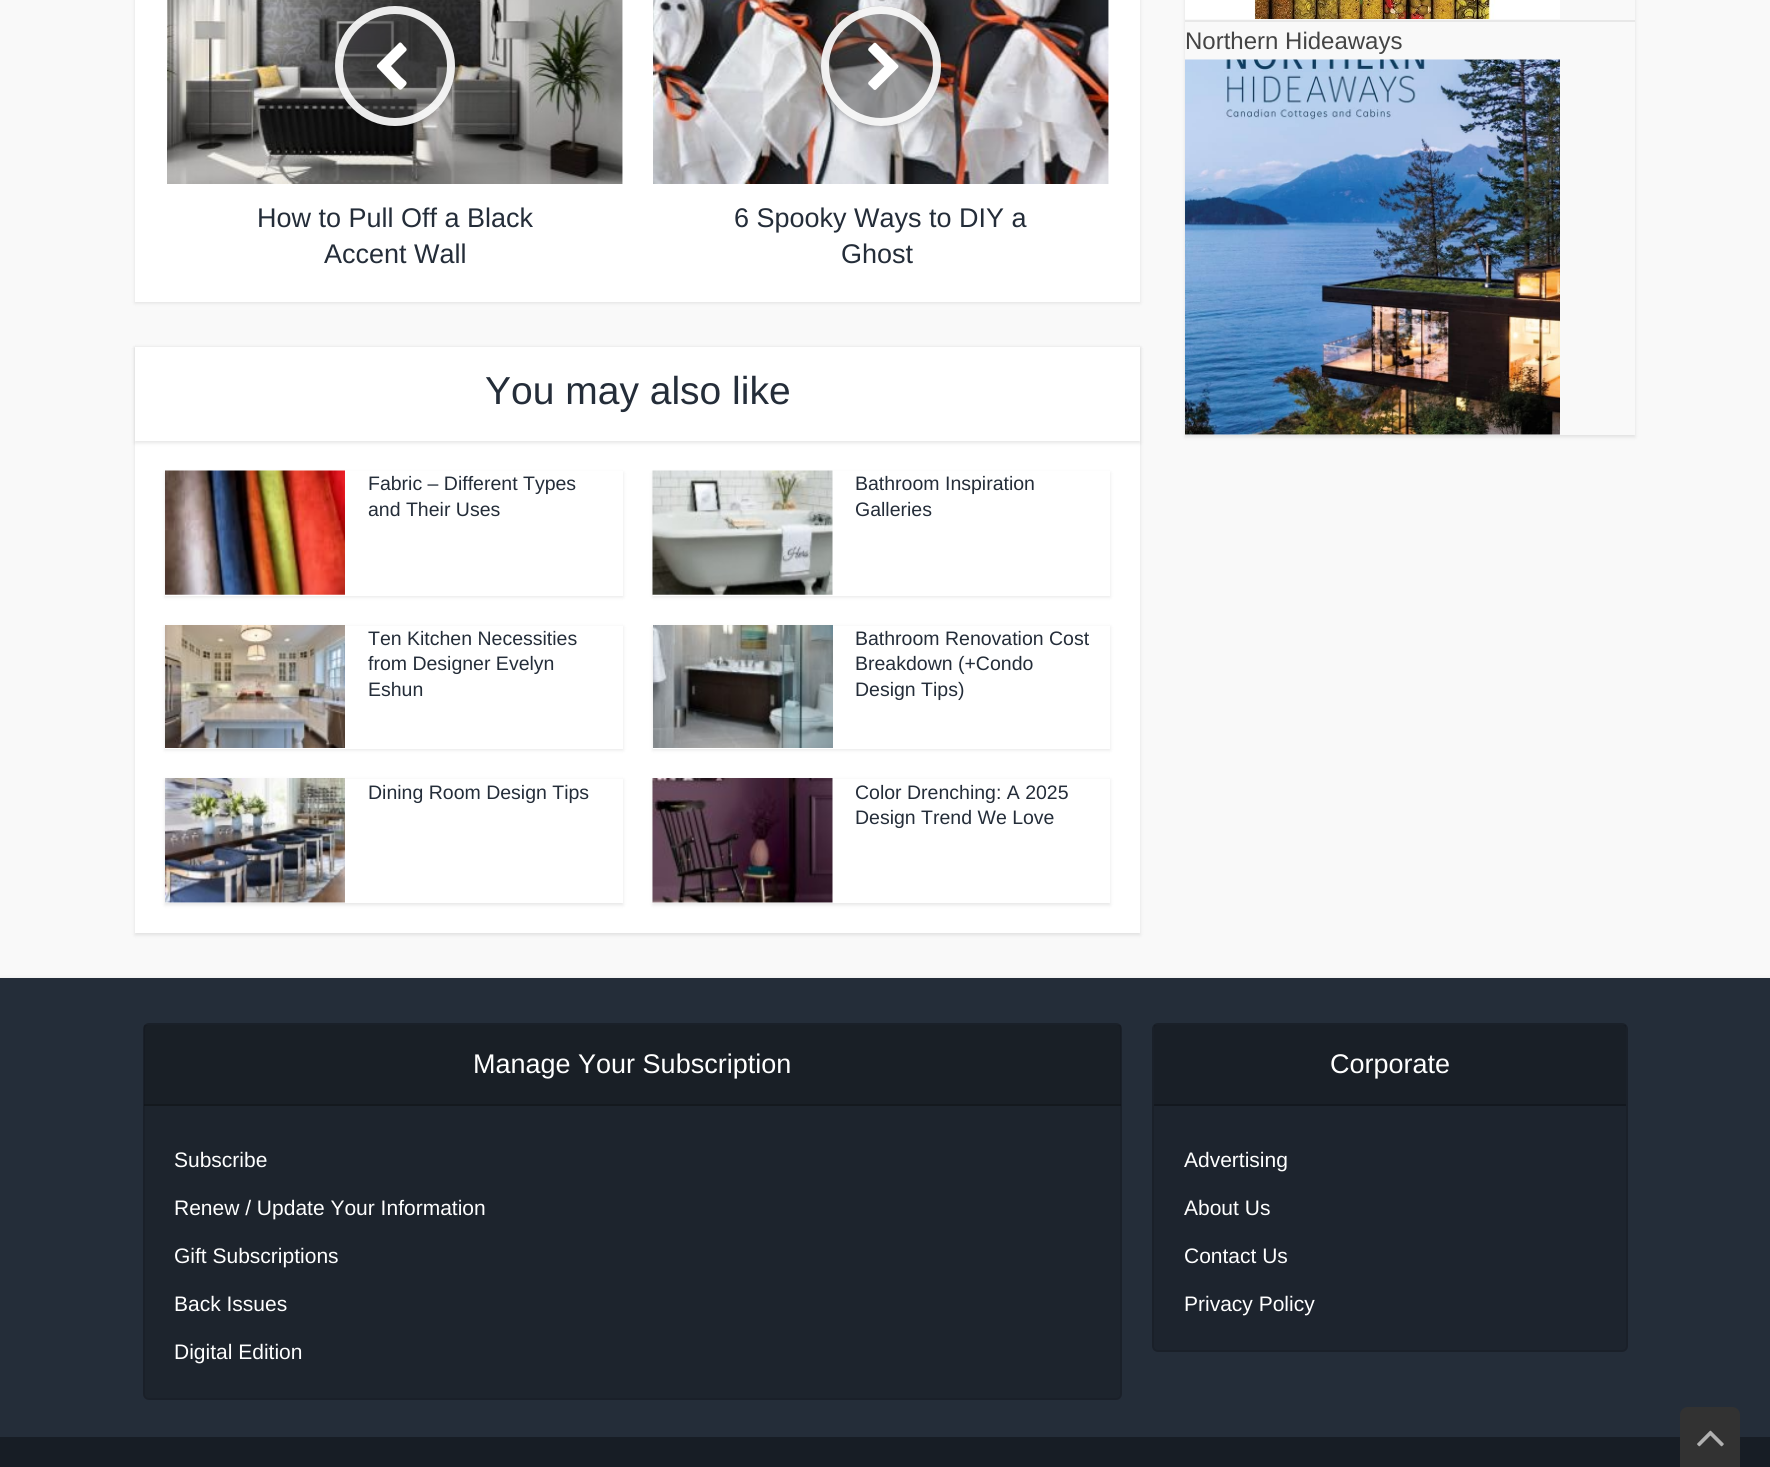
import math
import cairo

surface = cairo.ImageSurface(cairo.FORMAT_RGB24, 1770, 1467)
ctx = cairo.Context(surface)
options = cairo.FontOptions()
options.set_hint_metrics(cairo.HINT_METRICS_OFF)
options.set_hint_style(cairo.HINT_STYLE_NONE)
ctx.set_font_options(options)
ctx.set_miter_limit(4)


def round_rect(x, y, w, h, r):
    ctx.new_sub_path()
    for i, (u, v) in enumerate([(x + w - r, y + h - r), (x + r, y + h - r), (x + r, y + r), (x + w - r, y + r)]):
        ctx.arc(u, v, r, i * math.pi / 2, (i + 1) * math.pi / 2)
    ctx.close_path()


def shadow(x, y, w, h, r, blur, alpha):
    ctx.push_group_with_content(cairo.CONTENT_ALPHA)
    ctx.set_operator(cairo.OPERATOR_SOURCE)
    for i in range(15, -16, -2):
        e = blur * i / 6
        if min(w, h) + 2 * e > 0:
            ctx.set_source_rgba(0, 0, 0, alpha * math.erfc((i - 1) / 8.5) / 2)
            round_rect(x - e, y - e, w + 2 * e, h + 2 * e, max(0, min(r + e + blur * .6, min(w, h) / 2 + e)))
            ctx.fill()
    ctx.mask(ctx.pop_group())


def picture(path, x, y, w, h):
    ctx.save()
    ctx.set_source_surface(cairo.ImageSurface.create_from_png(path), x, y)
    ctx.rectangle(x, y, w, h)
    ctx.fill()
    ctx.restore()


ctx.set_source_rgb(0.976, 0.976, 0.976)
ctx.paint()
ctx.save()
ctx.set_fill_rule(cairo.FILL_RULE_EVEN_ODD)
ctx.new_path()
ctx.move_to(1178, 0)
ctx.line_to(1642, 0)
ctx.line_to(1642, 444)
ctx.line_to(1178, 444)
ctx.close_path()
ctx.move_to(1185, -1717)
ctx.line_to(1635, -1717)
ctx.line_to(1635, 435)
ctx.line_to(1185, 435)
ctx.close_path()
ctx.clip()
ctx.set_source_rgb(0, 0, 0)
shadow(1185, -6, 450, 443, 0, 2, 0.1)
ctx.restore()
ctx.set_source_rgb(0.91, 0.91, 0.91)
ctx.rectangle(1185, 20, 450, 2)
ctx.fill()
picture("img1.png", 1185, 0, 375, 19)
ctx.select_font_face("Liberation Sans")
ctx.set_font_size(24)
ctx.set_source_rgb(0.267, 0.267, 0.267)
ctx.move_to(1185, 49)
ctx.show_text("Northern Hideaways")
picture("img2.png", 1185, 59, 375, 376)
ctx.set_source_rgb(0, 0, 0)
shadow(135, -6, 1005, 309, 0, 2, 0.1)
ctx.set_source_rgb(1, 1, 1)
ctx.rectangle(135, 0, 1005, 302)
ctx.fill()
picture("img3.png", 167, 0, 456, 184)
ctx.save()
ctx.set_fill_rule(cairo.FILL_RULE_EVEN_ODD)
ctx.new_path()
ctx.move_to(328, 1)
ctx.line_to(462, 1)
ctx.line_to(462, 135)
ctx.line_to(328, 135)
ctx.close_path()
ctx.move_to(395, 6)
ctx.curve_to(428, 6, 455, 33, 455, 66)
ctx.curve_to(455, 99, 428, 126, 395, 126)
ctx.curve_to(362, 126, 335, 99, 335, 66)
ctx.curve_to(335, 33, 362, 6, 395, 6)
ctx.close_path()
ctx.clip()
ctx.set_source_rgb(0, 0, 0)
shadow(335, 8, 120, 120, 60, 2, 0.2)
ctx.restore()
ctx.set_source_rgba(0.29, 0.29, 0.29, 0.5)
ctx.arc(395, 66, 60, 0, 2 * math.pi)
ctx.fill()
ctx.arc(395, 66, 56, 0, 2 * math.pi)
ctx.set_source_rgba(1, 1, 1, 0.9)
ctx.set_line_width(8)
ctx.stroke()
ctx.set_source_rgb(1, 1, 1)
ctx.new_path()
ctx.move_to(406, 51)
ctx.line_to(391, 66)
ctx.line_to(401, 77)
ctx.curve_to(405, 81, 409, 82, 405, 86)
ctx.curve_to(400, 91, 401, 91, 395, 86)
ctx.line_to(377, 67)
ctx.line_to(377, 65)
ctx.line_to(399, 43)
ctx.curve_to(401, 41, 403, 45, 404, 46)
ctx.curve_to(405, 47, 408, 49, 406, 51)
ctx.close_path()
ctx.fill()
ctx.set_font_size(27)
ctx.set_source_rgb(0.141, 0.176, 0.224)
ctx.move_to(257, 227)
ctx.show_text("How to Pull Off a Black")
ctx.move_to(324, 263)
ctx.show_text("Accent Wall")
picture("img4.png", 653, 0, 456, 184)
ctx.save()
ctx.set_fill_rule(cairo.FILL_RULE_EVEN_ODD)
ctx.new_path()
ctx.move_to(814, 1)
ctx.line_to(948, 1)
ctx.line_to(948, 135)
ctx.line_to(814, 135)
ctx.close_path()
ctx.move_to(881, 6)
ctx.curve_to(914, 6, 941, 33, 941, 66)
ctx.curve_to(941, 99, 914, 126, 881, 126)
ctx.curve_to(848, 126, 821, 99, 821, 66)
ctx.curve_to(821, 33, 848, 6, 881, 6)
ctx.close_path()
ctx.clip()
ctx.set_source_rgb(0, 0, 0)
shadow(821, 8, 120, 120, 60, 2, 0.2)
ctx.restore()
ctx.set_source_rgba(0.29, 0.29, 0.29, 0.5)
ctx.arc(881, 66, 60, 0, 2 * math.pi)
ctx.fill()
ctx.arc(881, 66, 56, 0, 2 * math.pi)
ctx.set_source_rgba(1, 1, 1, 0.9)
ctx.stroke()
picture("img5.png", 868, 42, 31, 48)
ctx.set_source_rgb(0.141, 0.176, 0.224)
ctx.move_to(734, 227)
ctx.show_text("6 Spooky Ways to DIY a")
ctx.move_to(841, 263)
ctx.show_text("Ghost")
ctx.set_source_rgb(0, 0, 0)
shadow(135, 348, 1005, 587, 0, 2, 0.1)
ctx.set_source_rgb(1, 1, 1)
ctx.rectangle(135, 347, 1005, 586)
ctx.fill()
ctx.save()
ctx.set_fill_rule(cairo.FILL_RULE_EVEN_ODD)
ctx.new_path()
ctx.move_to(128, 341)
ctx.line_to(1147, 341)
ctx.line_to(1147, 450)
ctx.line_to(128, 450)
ctx.close_path()
ctx.move_to(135, 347)
ctx.line_to(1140, 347)
ctx.line_to(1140, 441)
ctx.line_to(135, 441)
ctx.close_path()
ctx.clip()
ctx.set_source_rgb(0, 0, 0)
shadow(135, 348, 1005, 95, 0, 2, 0.1)
ctx.restore()
ctx.set_font_size(39)
ctx.set_source_rgb(0.141, 0.176, 0.224)
ctx.move_to(485, 404)
ctx.show_text("You may also like")
ctx.set_source_rgb(0, 0, 0)
shadow(165, 473, 458, 124, 0, 2, 0.1)
ctx.set_source_rgb(1, 1, 1)
ctx.rectangle(165, 471, 458, 125)
ctx.fill()
picture("img6.png", 165, 470, 180, 125)
ctx.set_font_size(19.5)
ctx.set_source_rgb(0.141, 0.176, 0.224)
ctx.move_to(368, 490)
ctx.show_text("Fabric – Different Types")
ctx.move_to(368, 516)
ctx.show_text("and Their Uses")
ctx.set_source_rgb(0, 0, 0)
shadow(653, 473, 457, 124, 0, 2, 0.1)
ctx.set_source_rgb(1, 1, 1)
ctx.rectangle(653, 471, 457, 125)
ctx.fill()
picture("img7.png", 652, 470, 181, 125)
ctx.set_source_rgb(0.141, 0.176, 0.224)
ctx.move_to(855, 490)
ctx.show_text("Bathroom Inspiration")
ctx.move_to(855, 516)
ctx.show_text("Galleries")
ctx.set_source_rgb(0, 0, 0)
shadow(165, 627, 458, 123, 0, 2, 0.1)
ctx.set_source_rgb(1, 1, 1)
ctx.rectangle(165, 626, 458, 123)
ctx.fill()
picture("img8.png", 165, 625, 180, 123)
ctx.set_source_rgb(0.141, 0.176, 0.224)
ctx.move_to(368, 645)
ctx.show_text("Ten Kitchen Necessities")
ctx.move_to(368, 670)
ctx.show_text("from Designer Evelyn")
ctx.move_to(368, 696)
ctx.show_text("Eshun")
ctx.set_source_rgb(0, 0, 0)
shadow(653, 627, 457, 123, 0, 2, 0.1)
ctx.set_source_rgb(1, 1, 1)
ctx.rectangle(653, 626, 457, 123)
ctx.fill()
picture("img9.png", 653, 625, 180, 123)
ctx.set_source_rgb(0.141, 0.176, 0.224)
ctx.move_to(855, 645)
ctx.show_text("Bathroom Renovation Cost")
ctx.move_to(855, 670)
ctx.show_text("Breakdown (+Condo")
ctx.move_to(855, 696)
ctx.show_text("Design Tips)")
ctx.set_source_rgb(0, 0, 0)
shadow(165, 780, 458, 125, 0, 2, 0.1)
ctx.set_source_rgb(1, 1, 1)
ctx.rectangle(165, 779, 458, 124)
ctx.fill()
picture("img10.png", 165, 778, 180, 125)
ctx.set_source_rgb(0.141, 0.176, 0.224)
ctx.move_to(368, 799)
ctx.show_text("Dining Room Design Tips")
ctx.save()
ctx.set_fill_rule(cairo.FILL_RULE_EVEN_ODD)
ctx.new_path()
ctx.move_to(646, 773)
ctx.line_to(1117, 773)
ctx.line_to(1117, 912)
ctx.line_to(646, 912)
ctx.close_path()
ctx.move_to(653, 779)
ctx.line_to(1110, 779)
ctx.line_to(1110, 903)
ctx.line_to(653, 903)
ctx.close_path()
ctx.clip()
ctx.set_source_rgb(0, 0, 0)
shadow(653, 780, 457, 125, 0, 2, 0.1)
ctx.restore()
picture("img11.png", 652, 778, 181, 125)
ctx.move_to(855, 799)
ctx.show_text("Color Drenching: A 2025")
ctx.move_to(855, 824)
ctx.show_text("Design Trend We Love")
ctx.set_source_rgb(0, 0, 0)
shadow(0, 981, 1770, 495, 0, 3, 0.2)
ctx.set_source_rgb(0.141, 0.176, 0.224)
ctx.rectangle(0, 978, 1770, 459)
ctx.fill()
ctx.set_source_rgb(0.114, 0.141, 0.176)
round_rect(143, 1023, 979, 377, 6)
ctx.fill()
round_rect(144, 1024, 977, 375, 5)
ctx.set_source_rgba(0, 0, 0, 0.1)
ctx.set_line_width(2)
ctx.stroke()
ctx.set_source_rgba(0, 0, 0, 0.15)
ctx.rectangle(144, 1025, 977, 81)
ctx.fill()
ctx.set_source_rgba(0, 0, 0, 0.2)
ctx.rectangle(144, 1104, 977, 2)
ctx.fill()
ctx.set_font_size(27)
ctx.set_source_rgb(1, 1, 1)
ctx.move_to(473, 1073)
ctx.show_text("Manage Your Subscription")
ctx.set_font_size(21)
ctx.move_to(174, 1167)
ctx.show_text("Subscribe")
ctx.move_to(174, 1215)
ctx.show_text("Renew / Update Your Information")
ctx.move_to(174, 1263)
ctx.show_text("Gift Subscriptions")
ctx.move_to(174, 1311)
ctx.show_text("Back Issues")
ctx.move_to(174, 1359)
ctx.show_text("Digital Edition")
ctx.set_source_rgb(0.114, 0.141, 0.18)
round_rect(1153, 1024, 474, 327, 5)
ctx.fill_preserve()
ctx.set_source_rgb(0.102, 0.125, 0.161)
ctx.stroke()
ctx.set_source_rgba(0, 0, 0, 0.15)
ctx.rectangle(1154, 1025, 472, 79)
ctx.fill()
ctx.set_source_rgb(0.078, 0.094, 0.122)
ctx.rectangle(1154, 1104, 472, 2)
ctx.fill()
ctx.set_font_size(27)
ctx.set_source_rgb(1, 1, 1)
ctx.move_to(1330, 1073)
ctx.show_text("Corporate")
ctx.set_font_size(21)
ctx.move_to(1184, 1167)
ctx.show_text("Advertising")
ctx.move_to(1184, 1215)
ctx.show_text("About Us")
ctx.move_to(1184, 1263)
ctx.show_text("Contact Us")
ctx.move_to(1184, 1311)
ctx.show_text("Privacy Policy")
ctx.set_source_rgb(0.09, 0.114, 0.145)
ctx.rectangle(0, 1437, 1770, 30)
ctx.fill()
ctx.set_source_rgb(0.196, 0.196, 0.196)
ctx.new_path()
ctx.move_to(1688, 1407)
ctx.line_to(1732, 1407)
ctx.curve_to(1736.5, 1407, 1740, 1410.5, 1740, 1415)
ctx.line_to(1740, 1467)
ctx.line_to(1680, 1467)
ctx.line_to(1680, 1415)
ctx.curve_to(1680, 1410.5, 1683.5, 1407, 1688, 1407)
ctx.close_path()
ctx.fill()
picture("img12.png", 1697, 1430, 27, 17)
surface.write_to_png("page.png")
